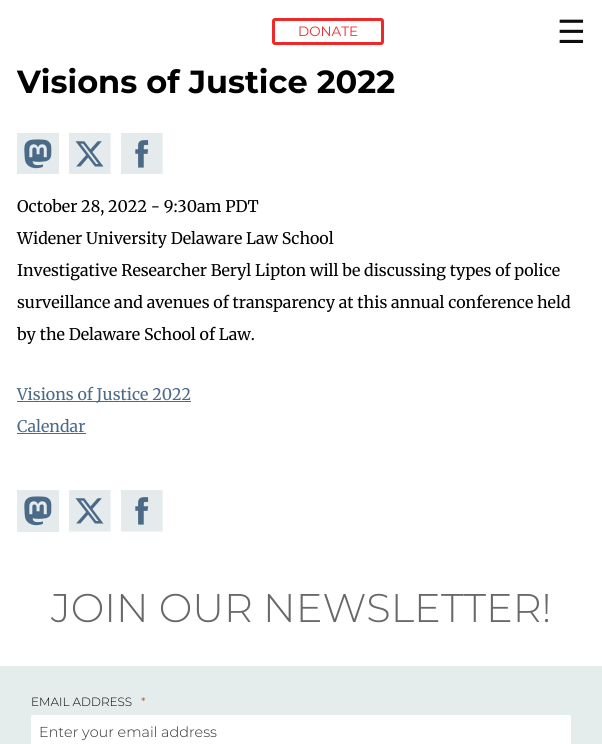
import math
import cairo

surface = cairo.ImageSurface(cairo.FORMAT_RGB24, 602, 744)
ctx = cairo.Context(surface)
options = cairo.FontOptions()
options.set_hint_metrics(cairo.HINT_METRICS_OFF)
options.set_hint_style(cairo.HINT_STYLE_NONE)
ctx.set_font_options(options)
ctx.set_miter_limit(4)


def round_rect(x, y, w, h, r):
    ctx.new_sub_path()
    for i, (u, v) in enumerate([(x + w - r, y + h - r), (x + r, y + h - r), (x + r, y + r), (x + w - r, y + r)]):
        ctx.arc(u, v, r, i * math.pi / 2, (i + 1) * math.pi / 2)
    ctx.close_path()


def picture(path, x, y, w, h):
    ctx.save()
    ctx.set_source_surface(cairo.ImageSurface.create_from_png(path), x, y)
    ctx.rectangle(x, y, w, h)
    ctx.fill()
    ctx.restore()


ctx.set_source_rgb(1, 1, 1)
ctx.paint()
round_rect(273.5, 19.5, 109, 24, 1.5)
ctx.set_source_rgb(0.929, 0.161, 0.161)
ctx.set_line_width(3)
ctx.stroke()
ctx.select_font_face("Montserrat")
ctx.set_font_size(13.5)
ctx.move_to(298, 36)
ctx.show_text("DONATE")
ctx.select_font_face("DejaVu Sans")
ctx.set_font_size(32)
ctx.set_source_rgb(0.051, 0.051, 0.051)
ctx.move_to(557, 43)
ctx.show_text("☰")
ctx.select_font_face("Montserrat", cairo.FONT_SLANT_NORMAL, cairo.FONT_WEIGHT_BOLD)
ctx.set_source_rgb(0, 0, 0)
ctx.move_to(17, 93)
ctx.show_text("Visions of Justice 2022")
picture("img1.png", 17, 133, 42, 41)
picture("img2.png", 69, 133, 42, 41)
picture("img3.png", 121, 133, 42, 41)
ctx.select_font_face("Merriweather")
ctx.set_font_size(16)
ctx.move_to(17, 212)
ctx.show_text("October 28, 2022 - 9:30am PDT")
ctx.move_to(17, 244)
ctx.show_text("Widener University Delaware Law School")
ctx.move_to(17, 276)
ctx.show_text("Investigative Researcher Beryl Lipton will be discussing types of police")
ctx.move_to(17, 308)
ctx.show_text("surveillance and avenues of transparency at this annual conference held")
ctx.move_to(17, 340)
ctx.show_text("by the Delaware School of Law.")
ctx.set_source_rgb(0.294, 0.416, 0.533)
ctx.rectangle(17, 401, 174, 1)
ctx.fill()
ctx.move_to(17, 400)
ctx.show_text("Visions of Justice 2022")
ctx.move_to(17, 432)
ctx.show_text("Calendar")
ctx.rectangle(17, 433, 69, 1)
ctx.fill()
picture("img4.png", 17, 490, 42, 42)
picture("img5.png", 69, 490, 42, 42)
picture("img6.png", 121, 490, 42, 42)
ctx.select_font_face("Montserrat Light")
ctx.set_font_size(40)
ctx.set_source_rgb(0.408, 0.408, 0.408)
ctx.move_to(51, 622)
ctx.show_text("JOIN OUR NEWSLETTER!")
ctx.set_source_rgb(0.898, 0.922, 0.925)
ctx.rectangle(0, 666, 602, 78)
ctx.fill()
ctx.set_font_size(12)
ctx.set_source_rgb(0, 0, 0)
ctx.move_to(31, 706)
ctx.show_text("EMAIL ADDRESS")
ctx.set_source_rgb(0.765, 0.204, 0)
ctx.move_to(141, 706)
ctx.show_text("*")
ctx.set_source_rgb(1, 1, 1)
round_rect(31, 715, 540, 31, 2)
ctx.fill()
ctx.set_font_size(14.4)
ctx.set_source_rgb(0.176, 0.176, 0.176)
ctx.move_to(39, 737)
ctx.show_text("Enter your email address")
surface.write_to_png("page.png")
